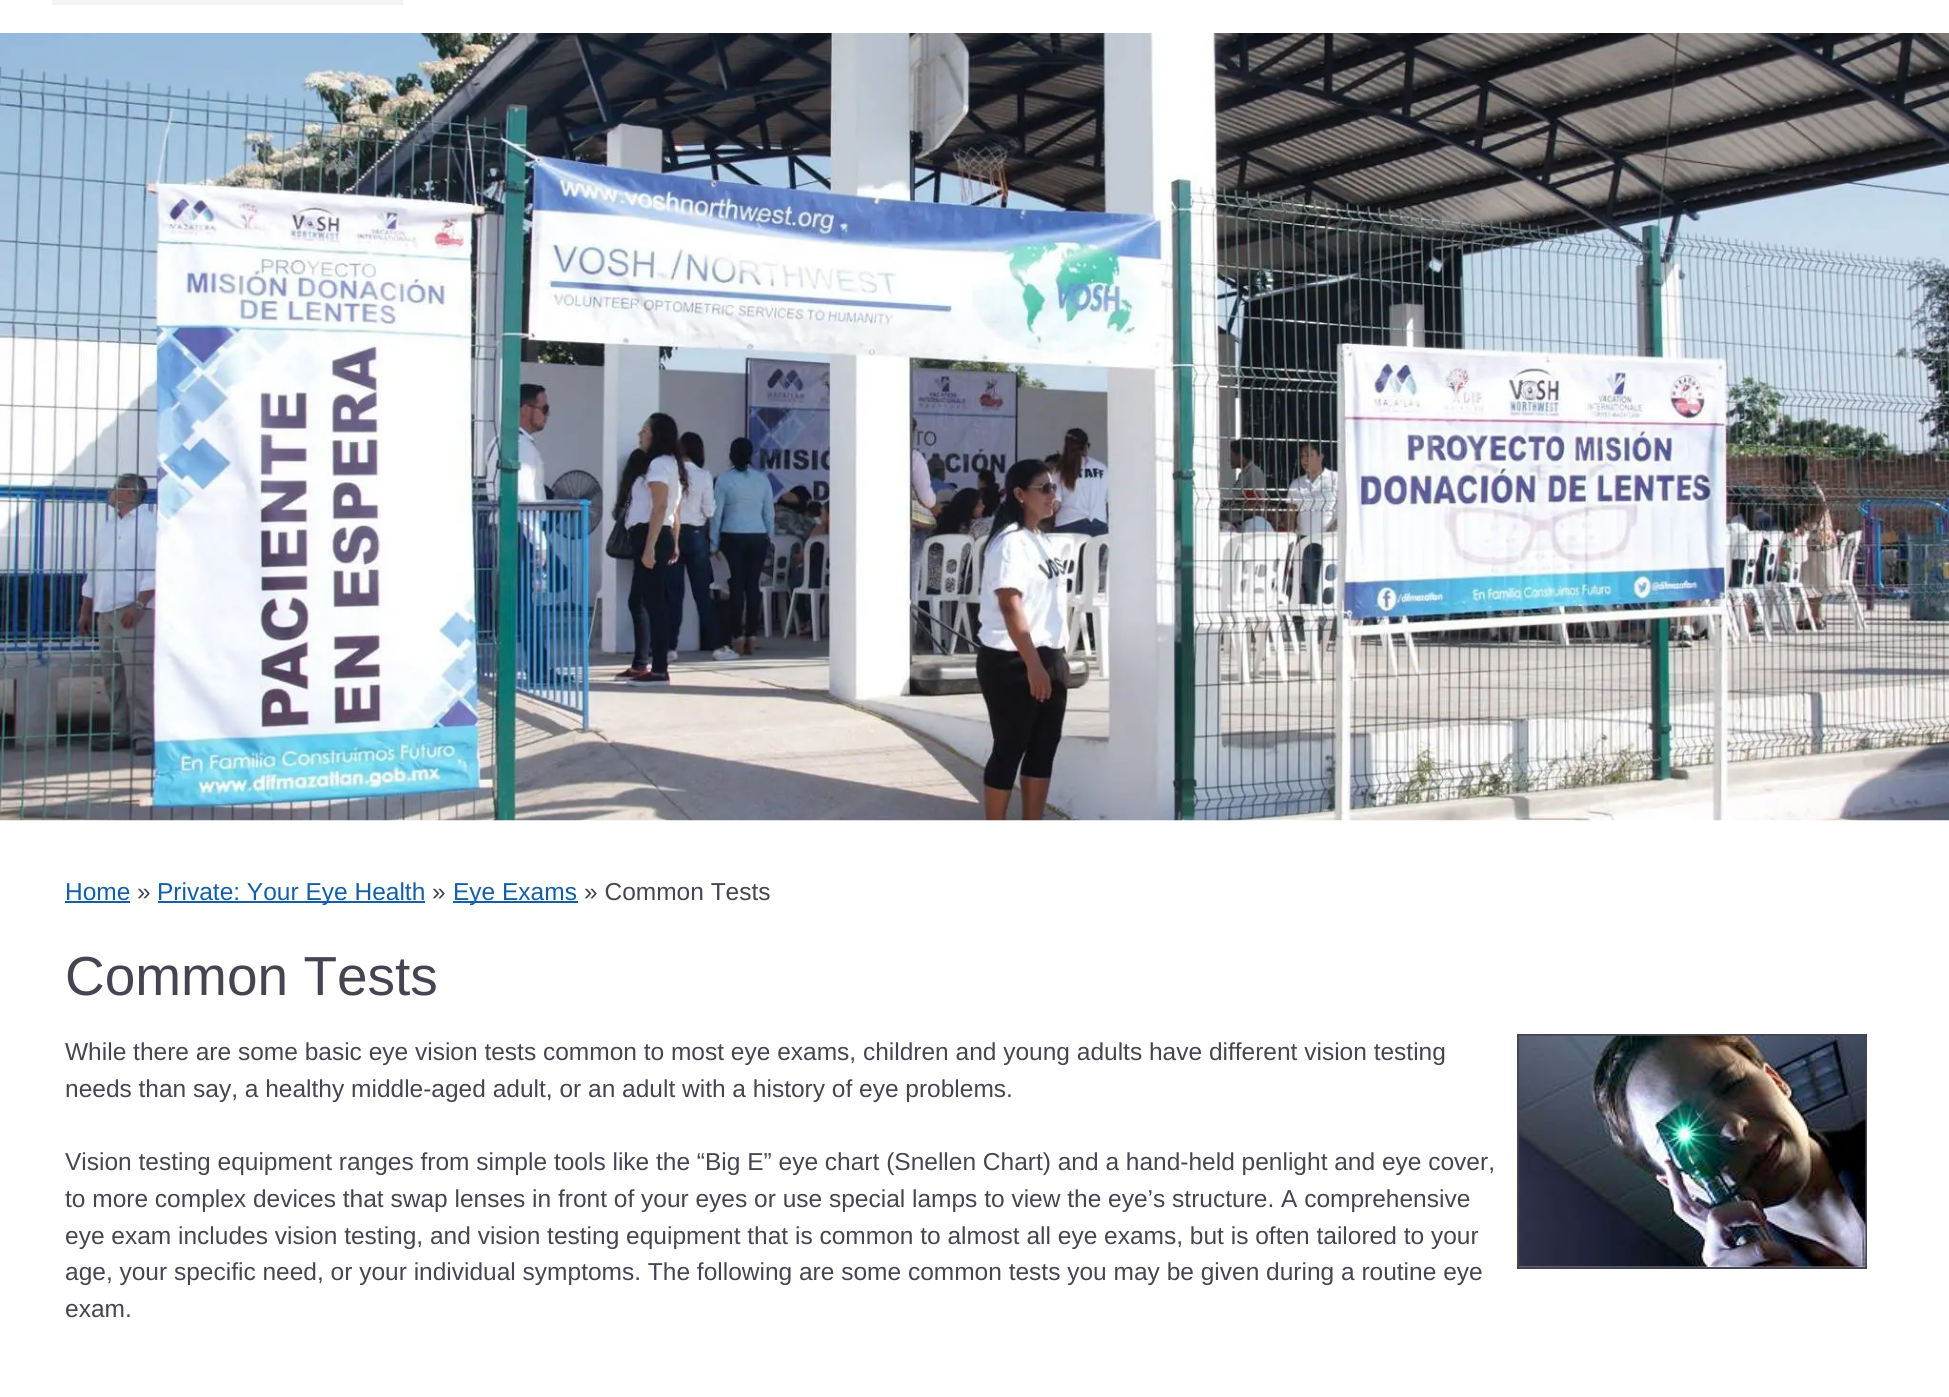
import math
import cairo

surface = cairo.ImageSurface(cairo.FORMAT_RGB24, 1949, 1397)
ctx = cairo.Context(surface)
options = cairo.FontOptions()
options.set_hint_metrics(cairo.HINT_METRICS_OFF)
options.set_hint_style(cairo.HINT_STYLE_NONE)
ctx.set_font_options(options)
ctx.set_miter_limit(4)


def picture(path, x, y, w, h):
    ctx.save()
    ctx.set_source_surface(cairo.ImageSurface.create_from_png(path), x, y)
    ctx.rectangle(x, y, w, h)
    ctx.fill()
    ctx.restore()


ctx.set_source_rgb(1, 1, 1)
ctx.paint()
ctx.set_source_rgb(0.953, 0.953, 0.953)
ctx.rectangle(52, 0, 351, 5)
ctx.fill()
picture("img1.png", 0, 33, 1949, 788)
ctx.select_font_face("Liberation Sans")
ctx.set_font_size(24.5)
ctx.set_source_rgb(0.075, 0.373, 0.655)
ctx.move_to(65, 900)
ctx.show_text("Home")
ctx.rectangle(65, 901, 65, 2)
ctx.fill()
ctx.set_source_rgb(0.275, 0.267, 0.318)
ctx.move_to(137, 900)
ctx.show_text("»")
ctx.set_source_rgb(0.075, 0.373, 0.655)
ctx.rectangle(158, 901, 267, 2)
ctx.fill()
ctx.move_to(157, 900)
ctx.show_text("Private: Your Eye Health")
ctx.set_source_rgb(0.275, 0.267, 0.318)
ctx.move_to(432, 900)
ctx.show_text("»")
ctx.set_source_rgb(0.075, 0.373, 0.655)
ctx.rectangle(453, 901, 125, 2)
ctx.fill()
ctx.move_to(453, 900)
ctx.show_text("Eye Exams")
ctx.set_source_rgb(0.275, 0.267, 0.318)
ctx.move_to(584, 900)
ctx.show_text("» Common Tests")
ctx.set_font_size(55)
ctx.move_to(65, 995)
ctx.show_text("Common Tests")
ctx.set_font_size(24.5)
ctx.move_to(65, 1060)
ctx.show_text("While there are some basic eye vision tests common to most eye exams, children and young adults have different vision testing")
ctx.rectangle(1518, 1035, 348, 233)
ctx.stroke()
picture("img2.png", 1519, 1035, 347, 232)
ctx.move_to(65, 1097)
ctx.show_text("needs than say, a healthy middle-aged adult, or an adult with a history of eye problems.")
ctx.move_to(65, 1170)
ctx.show_text("Vision testing equipment ranges from simple tools like the “Big E” eye chart (Snellen Chart) and a hand-held penlight and eye cover,")
ctx.move_to(65, 1207)
ctx.show_text("to more complex devices that swap lenses in front of your eyes or use special lamps to view the eye’s structure. A comprehensive")
ctx.move_to(65, 1244)
ctx.show_text("eye exam includes vision testing, and vision testing equipment that is common to almost all eye exams, but is often tailored to your")
ctx.move_to(65, 1280)
ctx.show_text("age, your specific need, or your individual symptoms. The following are some common tests you may be given during a routine eye")
ctx.move_to(65, 1317)
ctx.show_text("exam.")
surface.write_to_png("page.png")
